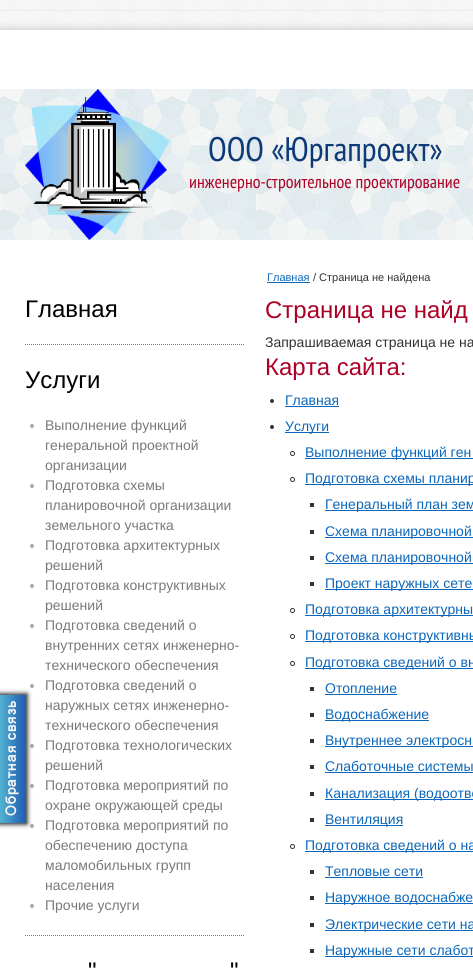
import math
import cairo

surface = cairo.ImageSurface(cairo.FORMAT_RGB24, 473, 974)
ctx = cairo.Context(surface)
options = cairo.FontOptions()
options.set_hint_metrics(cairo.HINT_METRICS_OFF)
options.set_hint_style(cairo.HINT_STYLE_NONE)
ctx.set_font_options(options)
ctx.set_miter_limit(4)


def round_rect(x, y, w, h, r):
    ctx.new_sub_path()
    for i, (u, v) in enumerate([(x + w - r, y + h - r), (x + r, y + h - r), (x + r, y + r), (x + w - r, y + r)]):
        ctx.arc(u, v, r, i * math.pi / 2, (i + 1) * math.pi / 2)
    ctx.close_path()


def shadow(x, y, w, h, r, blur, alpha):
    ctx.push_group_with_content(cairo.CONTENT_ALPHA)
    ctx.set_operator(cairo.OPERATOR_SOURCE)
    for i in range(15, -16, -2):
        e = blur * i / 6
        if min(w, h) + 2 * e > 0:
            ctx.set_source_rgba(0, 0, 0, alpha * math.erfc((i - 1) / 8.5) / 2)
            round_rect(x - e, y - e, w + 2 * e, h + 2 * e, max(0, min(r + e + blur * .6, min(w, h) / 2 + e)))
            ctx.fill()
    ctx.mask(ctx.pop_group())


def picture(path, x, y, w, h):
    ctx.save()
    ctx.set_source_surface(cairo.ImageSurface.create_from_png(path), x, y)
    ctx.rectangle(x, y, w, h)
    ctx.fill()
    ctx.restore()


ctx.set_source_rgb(1, 1, 1)
ctx.paint()
picture("img1.png", 0, 0, 473, 30)
ctx.set_source_rgb(0, 0, 0)
shadow(0, 30, 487, 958, 0, 4.5, 0.23)
ctx.set_source_rgb(1, 1, 1)
ctx.rectangle(0, 30, 473, 944)
ctx.fill()
ctx.set_source_rgb(0.659, 0.659, 0.659)
ctx.arc(32, 686, 2, 0, 2 * math.pi)
ctx.fill()
ctx.arc(32, 746, 2, 0, 2 * math.pi)
ctx.fill()
ctx.arc(32, 786, 2, 0, 2 * math.pi)
ctx.fill()
ctx.arc(32, 826, 2, 0, 2 * math.pi)
ctx.fill()
ctx.set_source_rgb(0, 0, 0)
shadow(-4, 694, 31, 130, 0, 2.5, 1)
picture("img2.png", 0, 695, 26, 128)
picture("img3.png", 0, 89, 473, 151)
picture("img4.png", 25, 89, 145, 151)
ctx.select_font_face("PT Sans Narrow")
ctx.set_font_size(34)
ctx.set_source_rgb(0.051, 0.224, 0.467)
ctx.move_to(208, 161)
ctx.show_text("ООО «Юргапроект»")
ctx.set_font_size(18)
ctx.set_source_rgb(0.678, 0, 0.153)
ctx.move_to(189, 188)
ctx.show_text("инженерно-строительное проектирование")
ctx.select_font_face("Liberation Sans")
ctx.set_font_size(11)
ctx.set_source_rgb(0.047, 0.404, 0.729)
ctx.move_to(267, 281)
ctx.show_text("Главная")
ctx.rectangle(267, 282, 43, 1)
ctx.fill()
ctx.set_source_rgb(0.2, 0.2, 0.2)
ctx.move_to(313, 281)
ctx.show_text("/ Страница не найдена")
ctx.new_path()
ctx.move_to(25, 344.5)
ctx.line_to(245, 344.5)
ctx.set_source_rgb(0.475, 0.475, 0.475)
ctx.set_line_width(1)
ctx.set_dash([1, 1])
ctx.stroke()
ctx.set_font_size(24)
ctx.set_source_rgb(0, 0, 0)
ctx.move_to(25, 317)
ctx.show_text("Главная")
ctx.new_path()
ctx.move_to(25, 935.5)
ctx.line_to(245, 935.5)
ctx.set_source_rgb(0.475, 0.475, 0.475)
ctx.stroke()
ctx.set_source_rgb(0, 0, 0)
ctx.move_to(25, 388)
ctx.show_text("Услуги")
ctx.set_source_rgb(0.659, 0.659, 0.659)
ctx.new_path()
ctx.arc(32, 426, 2, 0, 2 * math.pi)
ctx.fill()
ctx.set_font_size(14)
ctx.set_source_rgb(0.475, 0.475, 0.475)
ctx.move_to(45, 430)
ctx.show_text("Выполнение функций")
ctx.move_to(45, 450)
ctx.show_text("генеральной проектной")
ctx.move_to(45, 470)
ctx.show_text("организации")
ctx.set_source_rgb(0.659, 0.659, 0.659)
ctx.new_path()
ctx.arc(32, 486, 2, 0, 2 * math.pi)
ctx.fill()
ctx.set_source_rgb(0.475, 0.475, 0.475)
ctx.move_to(45, 490)
ctx.show_text("Подготовка схемы")
ctx.move_to(45, 510)
ctx.show_text("планировочной организации")
ctx.move_to(45, 530)
ctx.show_text("земельного участка")
ctx.set_source_rgb(0.659, 0.659, 0.659)
ctx.new_path()
ctx.arc(32, 546, 2, 0, 2 * math.pi)
ctx.fill()
ctx.set_source_rgb(0.475, 0.475, 0.475)
ctx.move_to(45, 550)
ctx.show_text("Подготовка архитектурных")
ctx.move_to(45, 570)
ctx.show_text("решений")
ctx.set_source_rgb(0.659, 0.659, 0.659)
ctx.new_path()
ctx.arc(32, 586, 2, 0, 2 * math.pi)
ctx.fill()
ctx.set_source_rgb(0.475, 0.475, 0.475)
ctx.move_to(45, 590)
ctx.show_text("Подготовка конструктивных")
ctx.move_to(45, 610)
ctx.show_text("решений")
ctx.set_source_rgb(0.659, 0.659, 0.659)
ctx.new_path()
ctx.arc(32, 626, 2, 0, 2 * math.pi)
ctx.fill()
ctx.set_source_rgb(0.475, 0.475, 0.475)
ctx.move_to(45, 630)
ctx.show_text("Подготовка сведений о")
ctx.move_to(45, 650)
ctx.show_text("внутренних сетях инженерно-")
ctx.move_to(45, 670)
ctx.show_text("технического обеспечения")
ctx.move_to(45, 690)
ctx.show_text("Подготовка сведений о")
ctx.move_to(45, 710)
ctx.show_text("наружных сетях инженерно-")
ctx.move_to(45, 730)
ctx.show_text("технического обеспечения")
ctx.move_to(45, 750)
ctx.show_text("Подготовка технологических")
ctx.move_to(45, 770)
ctx.show_text("решений")
ctx.move_to(45, 790)
ctx.show_text("Подготовка мероприятий по")
ctx.move_to(45, 810)
ctx.show_text("охране окружающей среды")
ctx.move_to(45, 830)
ctx.show_text("Подготовка мероприятий по")
ctx.move_to(45, 850)
ctx.show_text("обеспечению доступа")
ctx.move_to(45, 870)
ctx.show_text("маломобильных групп")
ctx.move_to(45, 890)
ctx.show_text("населения")
ctx.set_source_rgb(0.659, 0.659, 0.659)
ctx.new_path()
ctx.arc(32, 906, 2, 0, 2 * math.pi)
ctx.fill()
ctx.set_source_rgb(0.475, 0.475, 0.475)
ctx.move_to(45, 910)
ctx.show_text("Прочие услуги")
ctx.set_font_size(24)
ctx.set_source_rgb(0, 0, 0)
ctx.move_to(88, 979)
ctx.show_text("\"")
ctx.move_to(230, 979)
ctx.show_text("\"")
ctx.set_source_rgb(0.678, 0, 0.153)
ctx.move_to(265, 318)
ctx.show_text("Страница не найд")
ctx.set_font_size(14)
ctx.set_source_rgb(0.2, 0.2, 0.2)
ctx.move_to(265, 347)
ctx.show_text("Запрашиваемая страница не на")
ctx.set_font_size(24)
ctx.set_source_rgb(0.678, 0, 0.153)
ctx.move_to(265, 375)
ctx.show_text("Карта сайта:")
ctx.set_source_rgb(0.2, 0.2, 0.2)
ctx.new_path()
ctx.arc(272, 401, 2, 0, 2 * math.pi)
ctx.fill()
ctx.set_font_size(14)
ctx.set_source_rgb(0.047, 0.404, 0.729)
ctx.move_to(285, 405)
ctx.show_text("Главная")
ctx.rectangle(285, 406, 54, 1)
ctx.fill()
ctx.set_source_rgb(0.2, 0.2, 0.2)
ctx.arc(272, 427, 2, 0, 2 * math.pi)
ctx.fill()
ctx.set_source_rgb(0.047, 0.404, 0.729)
ctx.rectangle(285, 432, 44, 1)
ctx.fill()
ctx.move_to(285, 431)
ctx.show_text("Услуги")
ctx.new_path()
ctx.arc(292.5, 453.5, 2, 0, 2 * math.pi)
ctx.set_source_rgb(0.2, 0.2, 0.2)
ctx.set_dash([])
ctx.stroke()
ctx.set_source_rgb(0.047, 0.404, 0.729)
ctx.rectangle(305, 458, 168, 1)
ctx.fill()
ctx.move_to(305, 457)
ctx.show_text("Выполнение функций ген")
ctx.new_path()
ctx.arc(292.5, 479.5, 2, 0, 2 * math.pi)
ctx.set_source_rgb(0.2, 0.2, 0.2)
ctx.stroke()
ctx.set_source_rgb(0.047, 0.404, 0.729)
ctx.rectangle(305, 484, 168, 1)
ctx.fill()
ctx.move_to(305, 483)
ctx.show_text("Подготовка схемы планир")
ctx.set_source_rgb(0.2, 0.2, 0.2)
ctx.rectangle(310, 503, 4, 4)
ctx.fill()
ctx.set_source_rgb(0.047, 0.404, 0.729)
ctx.rectangle(325, 510, 148, 1)
ctx.fill()
ctx.move_to(325, 509)
ctx.show_text("Генеральный план зем")
ctx.set_source_rgb(0.2, 0.2, 0.2)
ctx.rectangle(310, 530, 4, 4)
ctx.fill()
ctx.set_source_rgb(0.047, 0.404, 0.729)
ctx.rectangle(325, 537, 148, 1)
ctx.fill()
ctx.move_to(325, 536)
ctx.show_text("Схема планировочной")
ctx.set_source_rgb(0.2, 0.2, 0.2)
ctx.rectangle(310, 556, 4, 4)
ctx.fill()
ctx.set_source_rgb(0.047, 0.404, 0.729)
ctx.rectangle(325, 563, 148, 1)
ctx.fill()
ctx.move_to(325, 562)
ctx.show_text("Схема планировочной")
ctx.set_source_rgb(0.2, 0.2, 0.2)
ctx.rectangle(310, 582, 4, 4)
ctx.fill()
ctx.set_source_rgb(0.047, 0.404, 0.729)
ctx.rectangle(325, 589, 148, 1)
ctx.fill()
ctx.move_to(325, 588)
ctx.show_text("Проект наружных сете")
ctx.new_path()
ctx.arc(292.5, 610.5, 2, 0, 2 * math.pi)
ctx.set_source_rgb(0.2, 0.2, 0.2)
ctx.stroke()
ctx.set_source_rgb(0.047, 0.404, 0.729)
ctx.rectangle(305, 615, 168, 1)
ctx.fill()
ctx.move_to(305, 614)
ctx.show_text("Подготовка архитектурны")
ctx.new_path()
ctx.arc(292.5, 636.5, 2, 0, 2 * math.pi)
ctx.set_source_rgb(0.2, 0.2, 0.2)
ctx.stroke()
ctx.set_source_rgb(0.047, 0.404, 0.729)
ctx.rectangle(305, 641, 168, 1)
ctx.fill()
ctx.move_to(305, 640)
ctx.show_text("Подготовка конструктивны")
ctx.new_path()
ctx.arc(292.5, 663.5, 2, 0, 2 * math.pi)
ctx.set_source_rgb(0.2, 0.2, 0.2)
ctx.stroke()
ctx.set_source_rgb(0.047, 0.404, 0.729)
ctx.rectangle(305, 668, 168, 1)
ctx.fill()
ctx.move_to(305, 667)
ctx.show_text("Подготовка сведений о вн")
ctx.set_source_rgb(0.2, 0.2, 0.2)
ctx.rectangle(310, 687, 4, 4)
ctx.fill()
ctx.set_source_rgb(0.047, 0.404, 0.729)
ctx.move_to(325, 693)
ctx.show_text("Отопление")
ctx.rectangle(325, 694, 72, 1)
ctx.fill()
ctx.set_source_rgb(0.2, 0.2, 0.2)
ctx.rectangle(310, 713, 4, 4)
ctx.fill()
ctx.set_source_rgb(0.047, 0.404, 0.729)
ctx.rectangle(325, 720, 104, 1)
ctx.fill()
ctx.move_to(325, 719)
ctx.show_text("Водоснабжение")
ctx.set_source_rgb(0.2, 0.2, 0.2)
ctx.rectangle(310, 739, 4, 4)
ctx.fill()
ctx.set_source_rgb(0.047, 0.404, 0.729)
ctx.rectangle(325, 746, 148, 1)
ctx.fill()
ctx.move_to(325, 745)
ctx.show_text("Внутреннее электросн")
ctx.set_source_rgb(0.2, 0.2, 0.2)
ctx.rectangle(310, 765, 4, 4)
ctx.fill()
ctx.set_source_rgb(0.047, 0.404, 0.729)
ctx.move_to(325, 771)
ctx.show_text("Слаботочные системы")
ctx.rectangle(325, 772, 148, 1)
ctx.fill()
ctx.set_source_rgb(0.2, 0.2, 0.2)
ctx.rectangle(310, 792, 4, 4)
ctx.fill()
ctx.set_source_rgb(0.047, 0.404, 0.729)
ctx.rectangle(325, 799, 148, 1)
ctx.fill()
ctx.move_to(325, 798)
ctx.show_text("Канализация (водоотве")
ctx.set_source_rgb(0.2, 0.2, 0.2)
ctx.rectangle(310, 818, 4, 4)
ctx.fill()
ctx.set_source_rgb(0.047, 0.404, 0.729)
ctx.rectangle(325, 825, 78, 1)
ctx.fill()
ctx.move_to(325, 824)
ctx.show_text("Вентиляция")
ctx.new_path()
ctx.arc(292.5, 846.5, 2, 0, 2 * math.pi)
ctx.set_source_rgb(0.2, 0.2, 0.2)
ctx.stroke()
ctx.set_source_rgb(0.047, 0.404, 0.729)
ctx.rectangle(305, 851, 168, 1)
ctx.fill()
ctx.move_to(305, 850)
ctx.show_text("Подготовка сведений о на")
ctx.set_source_rgb(0.2, 0.2, 0.2)
ctx.rectangle(310, 870, 4, 4)
ctx.fill()
ctx.set_source_rgb(0.047, 0.404, 0.729)
ctx.move_to(325, 876)
ctx.show_text("Тепловые сети")
ctx.rectangle(325, 877, 98, 1)
ctx.fill()
ctx.set_source_rgb(0.2, 0.2, 0.2)
ctx.rectangle(310, 896, 4, 4)
ctx.fill()
ctx.set_source_rgb(0.047, 0.404, 0.729)
ctx.rectangle(325, 903, 148, 1)
ctx.fill()
ctx.move_to(325, 902)
ctx.show_text("Наружное водоснабже")
ctx.set_source_rgb(0.2, 0.2, 0.2)
ctx.rectangle(310, 923, 4, 4)
ctx.fill()
ctx.set_source_rgb(0.047, 0.404, 0.729)
ctx.rectangle(325, 930, 148, 1)
ctx.fill()
ctx.move_to(325, 929)
ctx.show_text("Электрические сети на")
ctx.set_source_rgb(0.2, 0.2, 0.2)
ctx.rectangle(310, 949, 4, 4)
ctx.fill()
ctx.set_source_rgb(0.047, 0.404, 0.729)
ctx.rectangle(325, 956, 148, 1)
ctx.fill()
ctx.move_to(325, 955)
ctx.show_text("Наружные сети слабот")
surface.write_to_png("page.png")
